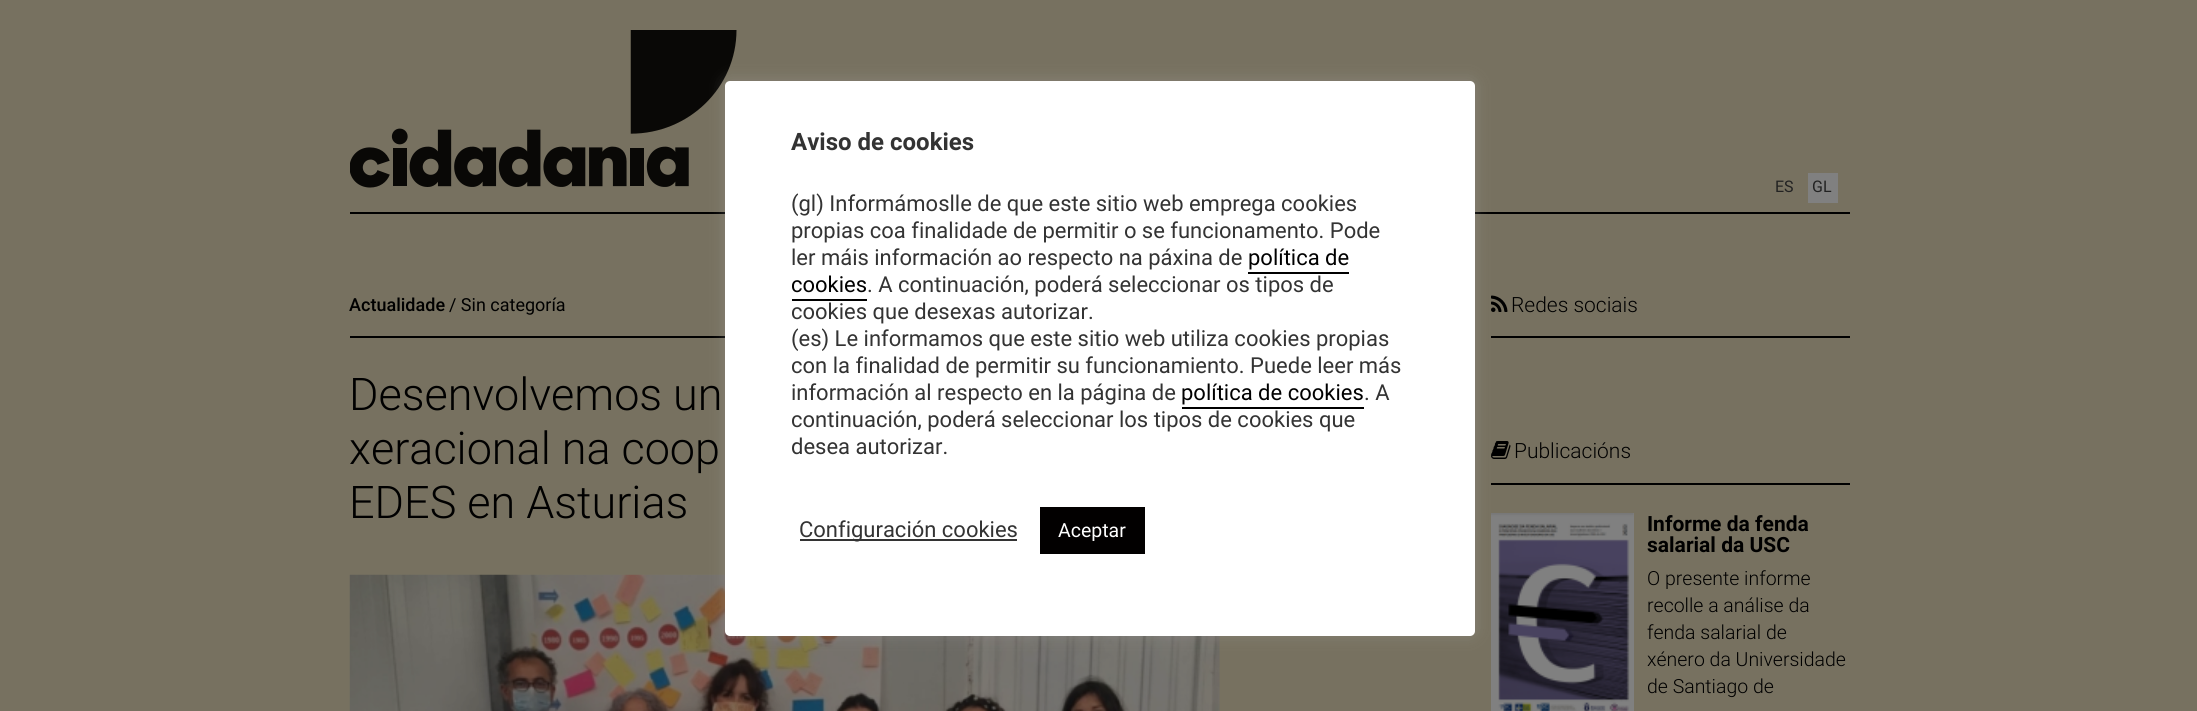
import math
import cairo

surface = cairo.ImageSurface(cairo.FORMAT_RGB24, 2197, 711)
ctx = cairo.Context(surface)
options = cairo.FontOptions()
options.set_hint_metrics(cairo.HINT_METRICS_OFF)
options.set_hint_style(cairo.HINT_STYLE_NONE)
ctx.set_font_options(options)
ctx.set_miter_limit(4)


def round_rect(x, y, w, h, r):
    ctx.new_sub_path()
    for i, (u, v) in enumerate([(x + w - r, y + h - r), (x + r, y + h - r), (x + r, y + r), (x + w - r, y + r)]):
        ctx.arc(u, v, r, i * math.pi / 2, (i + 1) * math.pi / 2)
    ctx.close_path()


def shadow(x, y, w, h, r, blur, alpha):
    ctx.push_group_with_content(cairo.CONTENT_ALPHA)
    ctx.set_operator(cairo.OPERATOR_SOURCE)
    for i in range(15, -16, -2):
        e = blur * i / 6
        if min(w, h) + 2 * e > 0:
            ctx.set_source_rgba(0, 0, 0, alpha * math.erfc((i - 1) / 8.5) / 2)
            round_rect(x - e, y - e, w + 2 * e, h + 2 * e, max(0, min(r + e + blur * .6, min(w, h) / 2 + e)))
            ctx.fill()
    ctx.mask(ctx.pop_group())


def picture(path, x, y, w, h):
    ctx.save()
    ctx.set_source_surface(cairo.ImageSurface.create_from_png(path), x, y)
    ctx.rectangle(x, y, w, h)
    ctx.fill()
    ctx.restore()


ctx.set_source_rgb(0.467, 0.443, 0.376)
ctx.paint()
picture("img1.png", 350, 30, 387, 158)
ctx.set_source_rgb(0, 0, 0)
ctx.rectangle(350, 212, 1500, 2)
ctx.fill()
ctx.rectangle(350, 336, 375, 2)
ctx.fill()
picture("img2.png", 349, 574, 871, 137)
ctx.rectangle(1491, 336, 359, 2)
ctx.fill()
picture("img3.png", 1491, 295, 17, 17)
ctx.rectangle(1491, 483, 359, 2)
ctx.fill()
picture("img4.png", 1491, 441, 20, 18)
ctx.set_source_rgb(0.502, 0.502, 0.502)
ctx.rectangle(1633, 513, 1, 198)
ctx.fill()
picture("img5.png", 1491, 513, 143, 198)
ctx.set_source_rgb(0.675, 0.671, 0.671)
shadow(725, 80, 750, 555, 5, 7.5, 0.3)
ctx.set_source_rgb(1, 1, 1)
round_rect(725, 81, 750, 555, 5)
ctx.fill()
ctx.select_font_face("Roboto", cairo.FONT_SLANT_NORMAL, cairo.FONT_WEIGHT_BOLD)
ctx.set_font_size(24)
ctx.set_source_rgb(0.2, 0.2, 0.2)
ctx.move_to(791, 150)
ctx.show_text("Aviso de cookies")
ctx.select_font_face("Roboto")
ctx.set_font_size(22)
ctx.move_to(791, 211)
ctx.show_text("(gl) Informámoslle de que este sitio web emprega cookies")
ctx.move_to(791, 238)
ctx.show_text("propias coa finalidade de permitir o se funcionamento. Pode")
ctx.move_to(791, 265)
ctx.show_text("ler máis información ao respecto na páxina de")
ctx.set_source_rgb(0, 0, 0)
ctx.move_to(1248, 265)
ctx.show_text("política de")
ctx.rectangle(1248, 272, 101, 2)
ctx.fill()
ctx.move_to(791, 292)
ctx.show_text("cookies")
ctx.rectangle(792, 299, 75, 2)
ctx.fill()
ctx.set_source_rgb(0.2, 0.2, 0.2)
ctx.move_to(867, 292)
ctx.show_text(". A continuación, poderá seleccionar os tipos de")
ctx.move_to(791, 319)
ctx.show_text("cookies que desexas autorizar.")
ctx.move_to(791, 346)
ctx.show_text("(es) Le informamos que este sitio web utiliza cookies propias")
ctx.move_to(791, 373)
ctx.show_text("con la finalidad de permitir su funcionamiento. Puede leer más")
ctx.move_to(791, 400)
ctx.show_text("información al respecto en la página de")
ctx.set_source_rgb(0, 0, 0)
ctx.move_to(1181, 400)
ctx.show_text("política de cookies")
ctx.rectangle(1182, 407, 182, 2)
ctx.fill()
ctx.set_source_rgb(0.2, 0.2, 0.2)
ctx.move_to(1364, 400)
ctx.show_text(". A")
ctx.move_to(791, 427)
ctx.show_text("continuación, poderá seleccionar los tipos de cookies que")
ctx.move_to(791, 454)
ctx.show_text("desea autorizar.")
ctx.rectangle(800, 539, 217, 2)
ctx.fill()
ctx.move_to(799, 537)
ctx.show_text("Configuración cookies")
ctx.set_source_rgb(0.008, 0, 0)
ctx.rectangle(1040, 507, 105, 47)
ctx.fill()
ctx.set_font_size(19.5)
ctx.set_source_rgb(1, 1, 1)
ctx.move_to(1058, 537)
ctx.show_text("Aceptar")
ctx.set_font_size(16)
ctx.set_source_rgb(0.133, 0.133, 0.133)
ctx.move_to(1775, 192)
ctx.show_text("ES")
ctx.set_source_rgb(0.502, 0.502, 0.502)
ctx.rectangle(1808, 173, 30, 30)
ctx.fill()
ctx.set_source_rgb(0.133, 0.133, 0.133)
ctx.move_to(1812, 192)
ctx.show_text("GL")
ctx.select_font_face("Roboto Medium")
ctx.set_font_size(18)
ctx.set_source_rgb(0, 0, 0)
ctx.move_to(349, 311)
ctx.show_text("Actualidade")
ctx.select_font_face("Roboto")
ctx.move_to(449, 311)
ctx.show_text("/ Sin categoría")
ctx.select_font_face("Roboto Light")
ctx.set_font_size(45)
ctx.move_to(349, 410)
ctx.show_text("Desenvolvemos un")
ctx.move_to(349, 464)
ctx.show_text("xeracional na coop")
ctx.move_to(349, 518)
ctx.show_text("EDES en Asturias")
ctx.set_font_size(21)
ctx.move_to(1511, 312)
ctx.show_text("Redes sociais")
ctx.move_to(1514, 458)
ctx.show_text("Publicacións")
ctx.select_font_face("Roboto", cairo.FONT_SLANT_NORMAL, cairo.FONT_WEIGHT_BOLD)
ctx.move_to(1647, 531)
ctx.show_text("Informe da fenda")
ctx.move_to(1647, 552)
ctx.show_text("salarial da USC")
ctx.select_font_face("Roboto Light")
ctx.set_font_size(19.5)
ctx.move_to(1647, 585)
ctx.show_text("O presente informe")
ctx.move_to(1647, 612)
ctx.show_text("recolle a análise da")
ctx.move_to(1647, 639)
ctx.show_text("fenda salarial de")
ctx.move_to(1647, 666)
ctx.show_text("xénero da Universidade")
ctx.move_to(1647, 693)
ctx.show_text("de Santiago de")
surface.write_to_png("page.png")
